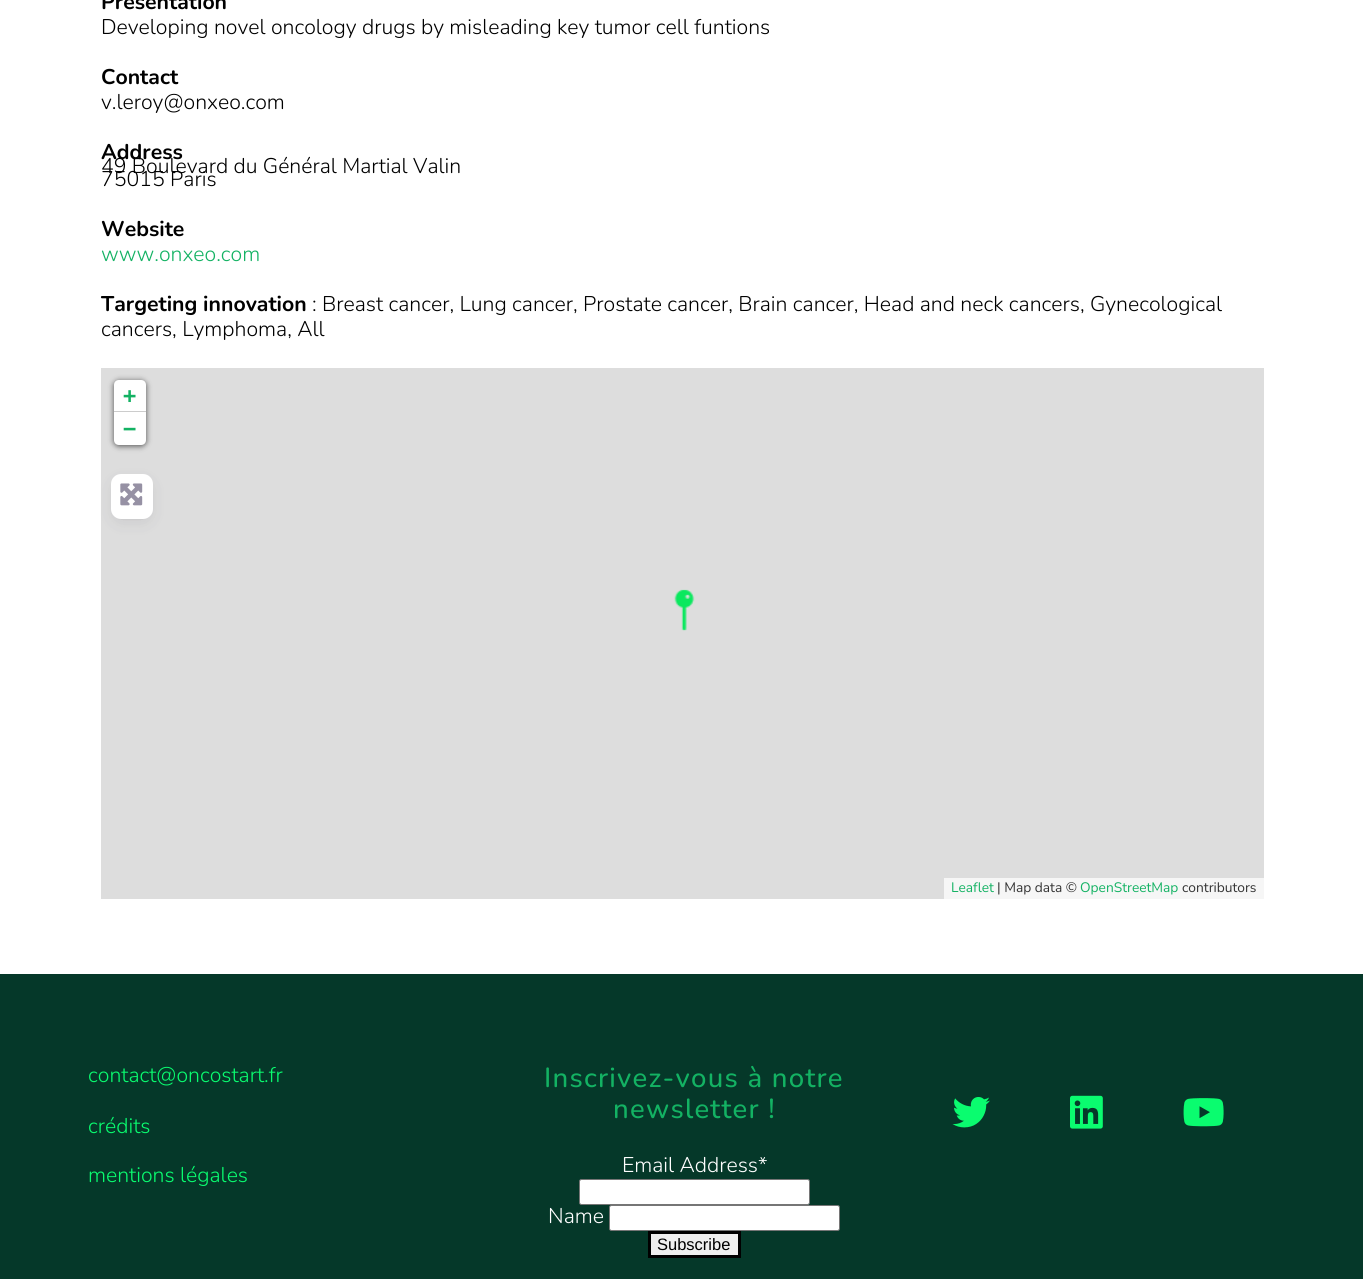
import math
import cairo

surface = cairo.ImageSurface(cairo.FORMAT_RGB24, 1363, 1279)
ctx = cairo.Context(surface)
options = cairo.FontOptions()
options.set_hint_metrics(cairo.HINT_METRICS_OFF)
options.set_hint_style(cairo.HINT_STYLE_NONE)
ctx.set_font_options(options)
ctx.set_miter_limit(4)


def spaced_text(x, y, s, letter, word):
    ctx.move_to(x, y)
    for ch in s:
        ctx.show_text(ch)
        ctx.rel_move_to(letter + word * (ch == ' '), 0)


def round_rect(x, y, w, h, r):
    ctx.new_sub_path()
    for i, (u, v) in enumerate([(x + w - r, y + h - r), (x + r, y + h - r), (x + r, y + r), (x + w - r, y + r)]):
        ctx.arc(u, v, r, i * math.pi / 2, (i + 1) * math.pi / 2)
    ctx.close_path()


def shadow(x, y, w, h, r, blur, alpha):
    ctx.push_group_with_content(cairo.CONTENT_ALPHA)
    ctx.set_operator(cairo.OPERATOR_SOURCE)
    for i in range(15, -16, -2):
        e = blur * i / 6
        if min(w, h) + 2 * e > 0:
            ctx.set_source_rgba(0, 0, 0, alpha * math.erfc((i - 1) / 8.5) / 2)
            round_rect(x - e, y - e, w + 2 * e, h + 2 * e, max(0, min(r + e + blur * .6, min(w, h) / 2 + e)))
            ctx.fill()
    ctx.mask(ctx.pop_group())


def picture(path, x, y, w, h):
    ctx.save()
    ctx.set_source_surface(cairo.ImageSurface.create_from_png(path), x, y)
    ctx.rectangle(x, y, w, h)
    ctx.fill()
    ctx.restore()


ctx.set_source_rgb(1, 1, 1)
ctx.paint()
ctx.select_font_face("Nunito", cairo.FONT_SLANT_NORMAL, cairo.FONT_WEIGHT_BOLD)
ctx.set_font_size(21.25)
ctx.set_source_rgb(0, 0, 0)
ctx.move_to(101, 9)
ctx.show_text("Presentation")
ctx.select_font_face("Nunito Light")
ctx.move_to(101, 34)
ctx.show_text("Developing novel oncology drugs by misleading key tumor cell funtions")
ctx.select_font_face("Nunito", cairo.FONT_SLANT_NORMAL, cairo.FONT_WEIGHT_BOLD)
ctx.move_to(101, 84)
ctx.show_text("Contact")
ctx.select_font_face("Nunito Light")
ctx.move_to(101, 109)
ctx.show_text("v.leroy@onxeo.com")
ctx.select_font_face("Nunito", cairo.FONT_SLANT_NORMAL, cairo.FONT_WEIGHT_BOLD)
ctx.move_to(101, 159)
ctx.show_text("Address")
ctx.select_font_face("Nunito Light")
ctx.move_to(101, 173)
ctx.show_text("49 Boulevard du Général Martial Valin")
ctx.move_to(101, 186)
ctx.show_text("75015 Paris")
ctx.select_font_face("Nunito", cairo.FONT_SLANT_NORMAL, cairo.FONT_WEIGHT_BOLD)
ctx.move_to(101, 236)
ctx.show_text("Website")
ctx.select_font_face("Nunito Light")
ctx.set_source_rgb(0.078, 0.698, 0.388)
ctx.move_to(101, 261)
ctx.show_text("www.onxeo.com")
ctx.select_font_face("Nunito", cairo.FONT_SLANT_NORMAL, cairo.FONT_WEIGHT_BOLD)
ctx.set_source_rgb(0, 0, 0)
ctx.move_to(101, 311)
ctx.show_text("Targeting innovation")
ctx.select_font_face("Nunito Light")
ctx.move_to(312, 311)
ctx.show_text(": Breast cancer, Lung cancer, Prostate cancer, Brain cancer, Head and neck cancers, Gynecological")
ctx.move_to(101, 336)
ctx.show_text("cancers, Lymphoma, All")
ctx.set_source_rgb(0.867, 0.867, 0.867)
ctx.rectangle(101, 368, 1163, 531)
ctx.fill()
ctx.set_source_rgb(0, 0, 0)
shadow(114, 381, 32, 65, 5, 3, 0.65)
ctx.set_source_rgb(1, 1, 1)
ctx.new_path()
ctx.move_to(119, 380)
ctx.line_to(141, 380)
ctx.curve_to(144, 380, 146, 382, 146, 385)
ctx.line_to(146, 413)
ctx.line_to(114, 413)
ctx.line_to(114, 385)
ctx.curve_to(114, 382, 116, 380, 119, 380)
ctx.close_path()
ctx.fill()
ctx.set_source_rgb(0.8, 0.8, 0.8)
ctx.rectangle(114, 411, 32, 1)
ctx.fill()
ctx.select_font_face("DejaVu Sans Mono", cairo.FONT_SLANT_NORMAL, cairo.FONT_WEIGHT_BOLD)
ctx.set_font_size(22)
ctx.set_source_rgb(0.078, 0.698, 0.388)
ctx.move_to(123, 403)
ctx.show_text("+")
ctx.set_source_rgb(1, 1, 1)
ctx.new_path()
ctx.move_to(114, 413)
ctx.line_to(146, 413)
ctx.line_to(146, 440)
ctx.curve_to(146, 443, 144, 445, 141, 445)
ctx.line_to(119, 445)
ctx.curve_to(116, 445, 114, 443, 114, 440)
ctx.close_path()
ctx.fill()
ctx.set_source_rgb(0.078, 0.698, 0.388)
ctx.move_to(123, 436)
ctx.show_text("−")
ctx.set_source_rgb(0.961, 0.961, 0.961)
ctx.rectangle(944, 878, 320, 21)
ctx.fill()
ctx.select_font_face("Nunito")
ctx.set_font_size(13.75)
ctx.set_source_rgb(0.078, 0.698, 0.388)
ctx.move_to(951, 892)
ctx.show_text("Leaflet")
ctx.set_source_rgb(0.2, 0.2, 0.2)
ctx.move_to(997, 892)
ctx.show_text("| Map data ©")
ctx.set_source_rgb(0.078, 0.698, 0.388)
ctx.move_to(1080, 892)
ctx.show_text("OpenStreetMap")
ctx.set_source_rgb(0.2, 0.2, 0.2)
ctx.move_to(1182, 892)
ctx.show_text("contributors")
picture("img1.png", 674, 589, 21, 42)
ctx.set_source_rgb(0.122, 0.106, 0.176)
shadow(111, 479, 42, 45, 10, 7.5, 0.08)
shadow(114, 479, 36, 40, 8, 1, 0.08)
ctx.set_source_rgb(1, 1, 1)
round_rect(111, 474, 42, 45, 10)
ctx.fill()
picture("img2.png", 120, 483, 23, 23)
ctx.set_source_rgb(0.02, 0.22, 0.161)
ctx.rectangle(0, 974, 1363, 305)
ctx.fill()
ctx.select_font_face("Nunito Light")
ctx.set_font_size(21.25)
ctx.set_source_rgb(0.039, 0.988, 0.435)
ctx.move_to(88, 1082)
ctx.show_text("contact@oncostart.fr")
ctx.move_to(88, 1133)
ctx.show_text("crédits")
ctx.move_to(88, 1182)
ctx.show_text("mentions légales")
ctx.select_font_face("Nunito Medium")
ctx.set_font_size(27.5)
ctx.set_source_rgb(0.078, 0.698, 0.388)
spaced_text(544, 1087, "Inscrivez-vous à notre", 1.25, 0)
spaced_text(613, 1118, "newsletter !", 1.25, 0)
ctx.select_font_face("Nunito Light")
ctx.set_font_size(21.25)
ctx.set_source_rgb(1, 1, 1)
ctx.move_to(622, 1172)
ctx.show_text("Email Address*")
round_rect(579.5, 1179.5, 230, 25, 2)
ctx.fill_preserve()
ctx.set_source_rgb(0.463, 0.463, 0.463)
ctx.set_line_width(1)
ctx.stroke()
ctx.set_source_rgb(1, 1, 1)
ctx.move_to(548, 1223)
ctx.show_text("Name")
round_rect(609.5, 1205.5, 230, 25, 2)
ctx.fill_preserve()
ctx.set_source_rgb(0.463, 0.463, 0.463)
ctx.stroke()
ctx.set_source_rgb(0.937, 0.937, 0.937)
ctx.rectangle(649.5, 1232.5, 90, 24)
ctx.fill_preserve()
ctx.set_source_rgb(0, 0, 0)
ctx.set_line_width(3)
ctx.stroke()
ctx.select_font_face("Liberation Sans")
ctx.set_font_size(16.5)
ctx.move_to(657, 1250)
ctx.show_text("Subscribe")
picture("img3.png", 952, 1097, 38, 31)
picture("img4.png", 1070, 1095, 33, 34)
picture("img5.png", 1183, 1098, 41, 29)
surface.write_to_png("page.png")
